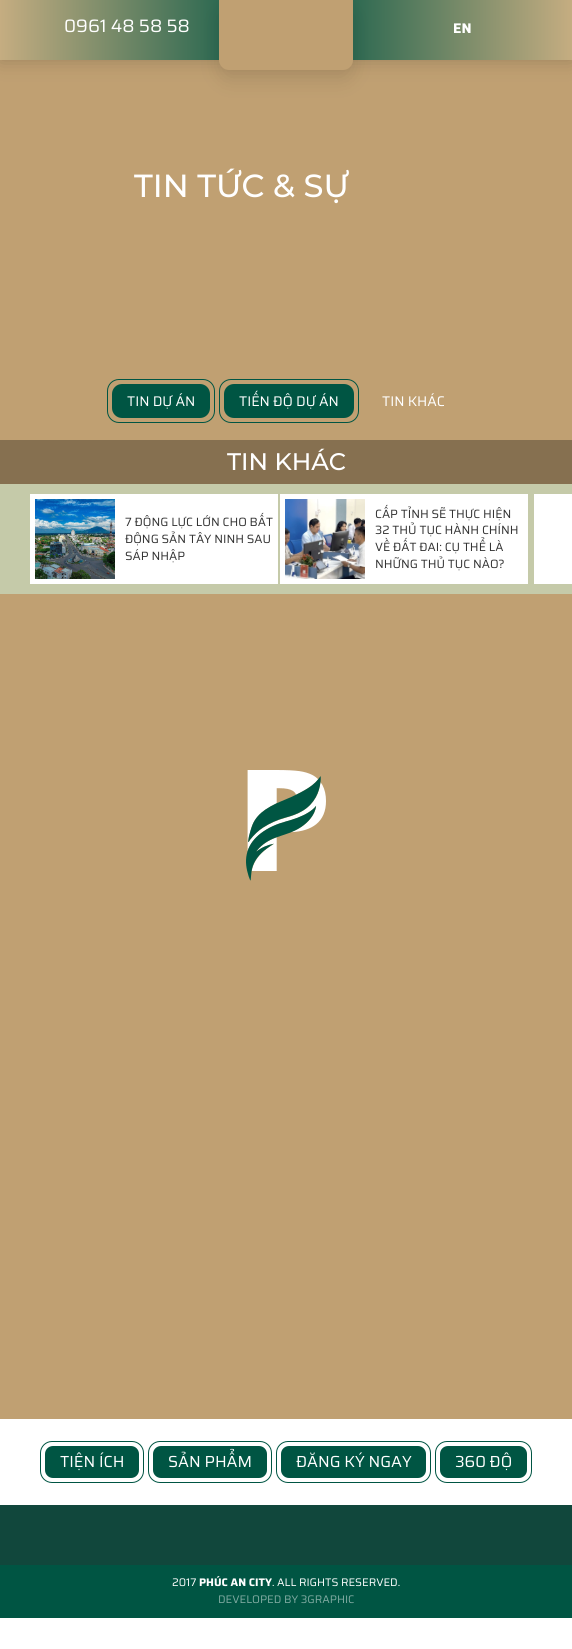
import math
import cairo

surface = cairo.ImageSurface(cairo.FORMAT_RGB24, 572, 1649)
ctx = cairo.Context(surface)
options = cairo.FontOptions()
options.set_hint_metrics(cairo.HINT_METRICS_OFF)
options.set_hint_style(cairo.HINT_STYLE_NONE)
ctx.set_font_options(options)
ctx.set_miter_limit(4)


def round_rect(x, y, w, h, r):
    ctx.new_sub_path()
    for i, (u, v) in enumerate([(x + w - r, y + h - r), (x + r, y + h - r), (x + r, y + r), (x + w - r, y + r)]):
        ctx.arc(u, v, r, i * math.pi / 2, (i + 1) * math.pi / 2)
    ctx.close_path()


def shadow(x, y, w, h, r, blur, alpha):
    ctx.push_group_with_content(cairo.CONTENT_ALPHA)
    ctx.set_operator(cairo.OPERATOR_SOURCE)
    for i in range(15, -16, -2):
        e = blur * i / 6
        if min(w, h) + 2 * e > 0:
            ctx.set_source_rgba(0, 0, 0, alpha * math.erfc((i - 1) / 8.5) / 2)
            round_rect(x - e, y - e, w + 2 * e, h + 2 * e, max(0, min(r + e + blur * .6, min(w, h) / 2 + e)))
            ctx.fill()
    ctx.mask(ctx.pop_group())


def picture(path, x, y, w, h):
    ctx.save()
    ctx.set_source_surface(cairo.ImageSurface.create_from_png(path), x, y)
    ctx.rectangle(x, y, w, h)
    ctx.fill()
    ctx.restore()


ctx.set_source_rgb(1, 1, 1)
ctx.paint()
ctx.set_source_rgb(0.753, 0.627, 0.447)
ctx.rectangle(0, 60, 572, 1359)
ctx.fill()
ctx.set_source_rgb(0, 0, 0)
shadow(0, 0, 572, 60, 0, 10, 0.2)
gradient = cairo.LinearGradient(0, 30, 572, 30)
gradient.add_color_stop_rgba(0, 0.773, 0.678, 0.506, 1)
gradient.add_color_stop_rgba(0.5, 0, 0.333, 0.263, 1)
gradient.add_color_stop_rgba(1, 0.773, 0.678, 0.506, 1)
ctx.set_source(gradient)
ctx.rectangle(0, 0, 572, 60)
ctx.fill()
ctx.select_font_face("Saira")
ctx.set_font_size(18)
ctx.set_source_rgb(1, 1, 1)
ctx.move_to(64, 32)
ctx.show_text("0961 48 58 58")
ctx.set_source_rgb(0, 0, 0)
shadow(219, 10, 134, 70, 10, 10, 0.1)
ctx.set_source_rgb(0.753, 0.627, 0.447)
ctx.new_path()
ctx.move_to(219, 0)
ctx.line_to(353, 0)
ctx.line_to(353, 60)
ctx.curve_to(353, 65.5, 348.5, 70, 343, 70)
ctx.line_to(229, 70)
ctx.curve_to(223.5, 70, 219, 65.5, 219, 60)
ctx.close_path()
ctx.fill()
ctx.select_font_face("Saira", cairo.FONT_SLANT_NORMAL, cairo.FONT_WEIGHT_BOLD)
ctx.set_font_size(14)
ctx.set_source_rgb(1, 1, 1)
ctx.move_to(453, 33)
ctx.show_text("EN")
ctx.select_font_face("Montserrat Thin")
ctx.set_font_size(32)
ctx.move_to(134, 197)
ctx.show_text("TIN TỨC & SỰ")
ctx.set_source_rgb(0, 0.333, 0.263)
round_rect(112, 384, 98, 34, 10)
ctx.fill()
round_rect(107.5, 379.5, 107, 43, 11.5)
ctx.set_line_width(1)
ctx.stroke()
ctx.select_font_face("Saira")
ctx.set_font_size(14)
ctx.set_source_rgb(1, 1, 1)
ctx.move_to(127, 406)
ctx.show_text("TIN DỰ ÁN")
ctx.set_source_rgb(0, 0.333, 0.263)
round_rect(224, 384, 130, 34, 10)
ctx.fill()
round_rect(219.5, 379.5, 139, 43, 11.5)
ctx.stroke()
ctx.set_source_rgb(1, 1, 1)
ctx.move_to(239, 406)
ctx.show_text("TIẾN ĐỘ DỰ ÁN")
ctx.move_to(382, 406)
ctx.show_text("TIN KHÁC")
ctx.set_source_rgb(0.525, 0.439, 0.314)
ctx.rectangle(0, 440, 572, 44)
ctx.fill()
ctx.select_font_face("Montserrat Thin")
ctx.set_font_size(24)
ctx.set_source_rgb(1, 1, 1)
ctx.move_to(227, 470)
ctx.show_text("TIN KHÁC")
ctx.set_source_rgb(0.773, 0.792, 0.663)
ctx.rectangle(0, 484, 572, 110)
ctx.fill()
ctx.set_source_rgb(1, 1, 1)
ctx.rectangle(30, 494, 248, 90)
ctx.fill()
picture("img1.png", 35, 499, 80, 80)
ctx.select_font_face("Saira")
ctx.set_font_size(12)
ctx.set_source_rgb(0.2, 0.2, 0.2)
ctx.move_to(125, 526)
ctx.show_text("7 ĐỘNG LỰC LỚN CHO BẤT")
ctx.move_to(125, 543)
ctx.show_text("ĐỘNG SẢN TÂY NINH SAU")
ctx.move_to(125, 560)
ctx.show_text("SÁP NHẬP")
ctx.set_source_rgb(1, 1, 1)
ctx.rectangle(280, 494, 248, 90)
ctx.fill()
picture("img2.png", 285, 499, 80, 80)
ctx.set_source_rgb(0.2, 0.2, 0.2)
ctx.move_to(375, 518)
ctx.show_text("CẤP TỈNH SẼ THỰC HIỆN")
ctx.move_to(375, 534)
ctx.show_text("32 THỦ TỤC HÀNH CHÍNH")
ctx.move_to(375, 551)
ctx.show_text("VỀ ĐẤT ĐAI: CỤ THỂ LÀ")
ctx.move_to(375, 568)
ctx.show_text("NHỮNG THỦ TỤC NÀO?")
ctx.set_source_rgb(1, 1, 1)
ctx.rectangle(534, 494, 38, 90)
ctx.fill()
picture("img3.png", 246, 770, 80, 111)
ctx.set_source_rgb(0, 0.333, 0.263)
round_rect(45, 1446, 94, 32, 8)
ctx.fill()
round_rect(40.5, 1441.5, 103, 41, 11.5)
ctx.stroke()
ctx.set_font_size(16)
ctx.set_source_rgb(1, 1, 1)
ctx.move_to(60, 1467)
ctx.show_text("TIỆN ÍCH")
ctx.set_source_rgb(0, 0.333, 0.263)
round_rect(153, 1446, 114, 32, 8)
ctx.fill()
round_rect(148.5, 1441.5, 123, 41, 11.5)
ctx.stroke()
ctx.set_source_rgb(1, 1, 1)
ctx.move_to(168, 1467)
ctx.show_text("SẢN PHẨM")
ctx.set_source_rgb(0, 0.333, 0.263)
round_rect(281, 1446, 145, 32, 8)
ctx.fill()
round_rect(276.5, 1441.5, 154, 41, 11.5)
ctx.stroke()
ctx.set_source_rgb(1, 1, 1)
ctx.move_to(296, 1467)
ctx.show_text("ĐĂNG KÝ NGAY")
ctx.set_source_rgb(0, 0.333, 0.263)
round_rect(440, 1446, 87, 32, 8)
ctx.fill()
round_rect(435.5, 1441.5, 96, 41, 11.5)
ctx.stroke()
ctx.set_source_rgb(1, 1, 1)
ctx.move_to(455, 1467)
ctx.show_text("360 ĐỘ")
ctx.set_source_rgb(0.067, 0.278, 0.235)
ctx.rectangle(0, 1505, 572, 60)
ctx.fill()
ctx.set_source_rgb(0, 0.333, 0.263)
ctx.rectangle(0, 1565, 572, 53)
ctx.fill()
ctx.set_font_size(11)
ctx.set_source_rgb(1, 1, 1)
ctx.move_to(172, 1586)
ctx.show_text("2017")
ctx.select_font_face("Saira", cairo.FONT_SLANT_NORMAL, cairo.FONT_WEIGHT_BOLD)
ctx.move_to(199, 1586)
ctx.show_text("PHÚC AN CITY")
ctx.select_font_face("Saira")
ctx.move_to(272, 1586)
ctx.show_text(". ALL RIGHTS RESERVED.")
ctx.set_source_rgb(0.502, 0.667, 0.631)
ctx.move_to(218, 1603)
ctx.show_text("DEVELOPED BY 3GRAPHIC")
surface.write_to_png("page.png")
